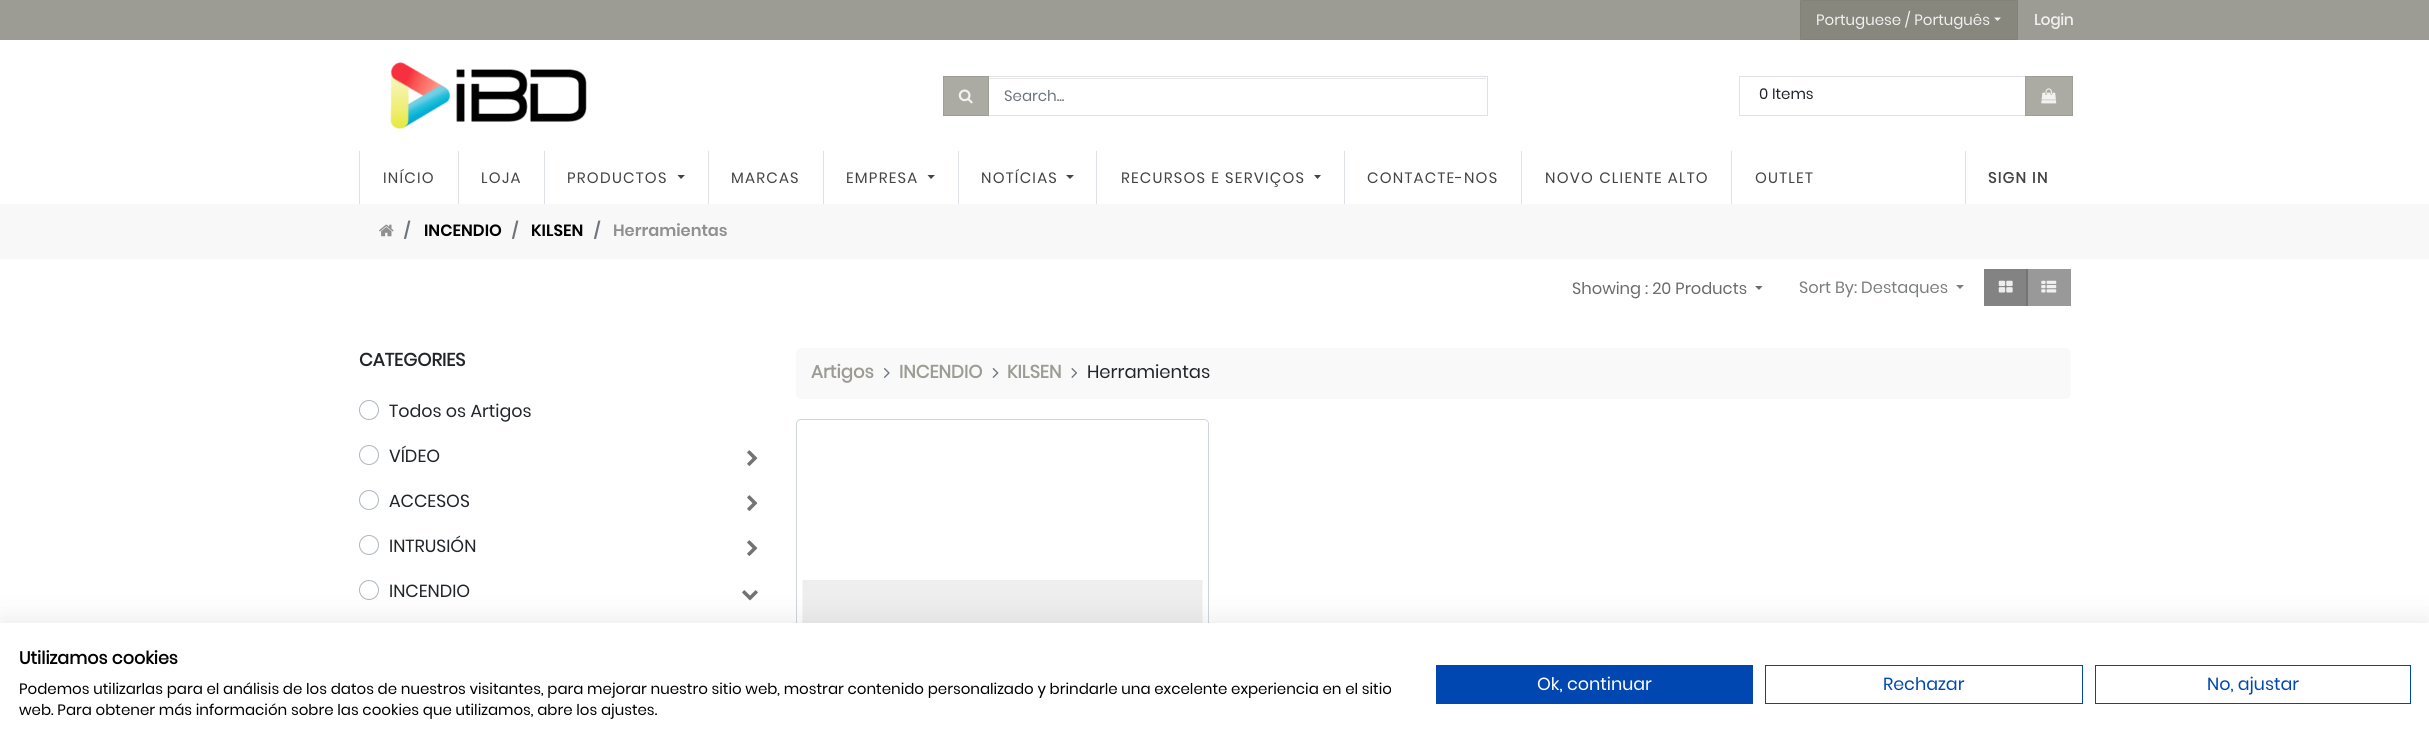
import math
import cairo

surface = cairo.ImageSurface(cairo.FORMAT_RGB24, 2429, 755)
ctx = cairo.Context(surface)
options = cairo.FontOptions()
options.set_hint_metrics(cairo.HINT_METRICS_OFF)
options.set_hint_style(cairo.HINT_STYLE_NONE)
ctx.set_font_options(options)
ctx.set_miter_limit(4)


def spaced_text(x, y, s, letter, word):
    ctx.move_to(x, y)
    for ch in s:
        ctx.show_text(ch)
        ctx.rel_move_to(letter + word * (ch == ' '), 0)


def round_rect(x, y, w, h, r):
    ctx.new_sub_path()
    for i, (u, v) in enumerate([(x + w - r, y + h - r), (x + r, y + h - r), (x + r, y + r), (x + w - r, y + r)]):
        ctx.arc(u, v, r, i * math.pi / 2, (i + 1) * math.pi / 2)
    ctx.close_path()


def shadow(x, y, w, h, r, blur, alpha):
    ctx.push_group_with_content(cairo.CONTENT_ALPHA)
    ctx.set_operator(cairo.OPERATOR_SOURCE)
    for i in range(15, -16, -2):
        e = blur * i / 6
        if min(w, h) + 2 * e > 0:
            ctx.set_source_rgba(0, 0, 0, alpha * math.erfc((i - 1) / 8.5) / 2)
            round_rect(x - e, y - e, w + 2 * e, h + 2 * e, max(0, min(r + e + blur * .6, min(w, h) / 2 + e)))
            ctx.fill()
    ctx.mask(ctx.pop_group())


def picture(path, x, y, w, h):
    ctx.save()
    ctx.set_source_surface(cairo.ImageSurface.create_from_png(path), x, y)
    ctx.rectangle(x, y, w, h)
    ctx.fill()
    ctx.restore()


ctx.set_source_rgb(1, 1, 1)
ctx.paint()
ctx.set_source_rgb(0.671, 0.671, 0.643)
ctx.rectangle(2025, 76, 48, 40)
ctx.fill()
ctx.set_source_rgb(0.518, 0.514, 0.514)
ctx.rectangle(1984, 269, 42, 37)
ctx.fill()
ctx.set_source_rgb(0.612, 0.612, 0.58)
ctx.rectangle(0, 0, 2429, 40)
ctx.fill()
ctx.set_source_rgb(0.529, 0.529, 0.494)
round_rect(1800.5, 0.5, 217, 39, 0.5)
ctx.fill_preserve()
ctx.set_source_rgb(0.51, 0.51, 0.471)
ctx.set_line_width(1)
ctx.stroke()
ctx.select_font_face("Poppins")
ctx.set_font_size(15)
ctx.set_source_rgb(0.941, 0.941, 0.937)
ctx.move_to(1816, 25)
ctx.show_text("Portuguese / Português")
ctx.new_path()
ctx.move_to(1994, 17.5)
ctx.line_to(2001, 17.5)
ctx.line_to(1997.5, 21)
ctx.close_path()
ctx.fill()
ctx.select_font_face("Poppins", cairo.FONT_SLANT_NORMAL, cairo.FONT_WEIGHT_BOLD)
ctx.move_to(2034, 25)
ctx.show_text("Login")
picture("img1.png", 390, 62, 197, 67)
ctx.set_source_rgb(0.902, 0.902, 0.902)
ctx.rectangle(989, 78, 497, 1)
ctx.fill()
ctx.rectangle(988.5, 76.5, 499, 39)
ctx.set_source_rgb(0.871, 0.886, 0.902)
ctx.stroke()
ctx.set_source_rgba(0.612, 0.612, 0.58, 0.85)
ctx.rectangle(943, 76, 46, 40)
ctx.fill()
ctx.rectangle(943.5, 76.5, 45, 39)
ctx.stroke()
picture("img2.png", 958, 89, 15, 15)
ctx.select_font_face("Poppins")
ctx.set_source_rgb(0.424, 0.459, 0.49)
ctx.move_to(1004, 101)
ctx.show_text("Search...")
ctx.set_source_rgb(0.871, 0.886, 0.902)
ctx.rectangle(1739, 76, 287, 1)
ctx.fill()
ctx.set_source_rgb(0.651, 0.655, 0.627)
ctx.rectangle(2025, 76, 1, 1)
ctx.fill()
ctx.set_source_rgb(0.871, 0.886, 0.902)
ctx.rectangle(1739, 115, 287, 1)
ctx.fill()
ctx.set_source_rgb(0.651, 0.655, 0.627)
ctx.rectangle(2025, 115, 1, 1)
ctx.fill()
ctx.set_source_rgb(0.871, 0.886, 0.902)
ctx.rectangle(1739, 76, 1, 40)
ctx.fill()
ctx.set_source_rgb(0.129, 0.145, 0.161)
ctx.move_to(1759, 99)
ctx.show_text("0 Items")
ctx.rectangle(2025.5, 76.5, 47, 39)
ctx.set_source_rgba(0.612, 0.612, 0.58, 0.85)
ctx.stroke()
picture("img3.png", 2041, 88, 16, 16)
ctx.set_source_rgb(0.871, 0.886, 0.902)
ctx.rectangle(359, 151, 1, 53)
ctx.fill()
ctx.set_source_rgb(0.267, 0.267, 0.267)
spaced_text(383, 183, "INÍCIO", 1.25, 0)
ctx.set_source_rgb(0.871, 0.886, 0.902)
ctx.rectangle(458, 151, 1, 53)
ctx.fill()
ctx.set_source_rgb(0.267, 0.267, 0.267)
spaced_text(481, 183, "LOJA", 1.25, 0)
ctx.set_source_rgb(0.871, 0.886, 0.902)
ctx.rectangle(544, 151, 1, 53)
ctx.fill()
ctx.set_source_rgb(0.267, 0.267, 0.267)
spaced_text(567, 183, "PRODUCTOS", 1.25, 0)
ctx.new_path()
ctx.move_to(677.5, 175)
ctx.line_to(685, 175)
ctx.line_to(681, 179)
ctx.close_path()
ctx.fill()
ctx.set_source_rgb(0.871, 0.886, 0.902)
ctx.rectangle(708, 151, 1, 53)
ctx.fill()
ctx.set_source_rgb(0.267, 0.267, 0.267)
spaced_text(731, 183, "MARCAS", 1.25, 0)
ctx.set_source_rgb(0.871, 0.886, 0.902)
ctx.rectangle(823, 151, 1, 53)
ctx.fill()
ctx.set_source_rgb(0.267, 0.267, 0.267)
spaced_text(846, 183, "EMPRESA", 1.25, 0)
ctx.new_path()
ctx.move_to(927.5, 175)
ctx.line_to(935, 175)
ctx.line_to(931, 179)
ctx.close_path()
ctx.fill()
ctx.set_source_rgb(0.871, 0.886, 0.902)
ctx.rectangle(958, 151, 1, 53)
ctx.fill()
ctx.set_source_rgb(0.267, 0.267, 0.267)
spaced_text(981, 183, "NOTÍCIAS", 1.25, 0)
ctx.new_path()
ctx.move_to(1066, 175)
ctx.line_to(1074, 175)
ctx.line_to(1070, 179)
ctx.close_path()
ctx.fill()
ctx.set_source_rgb(0.871, 0.886, 0.902)
ctx.rectangle(1096, 151, 1, 53)
ctx.fill()
ctx.set_source_rgb(0.267, 0.267, 0.267)
spaced_text(1121, 183, "RECURSOS E SERVIÇOS", 1.25, 0)
ctx.new_path()
ctx.move_to(1314, 175)
ctx.line_to(1321, 175)
ctx.line_to(1317.5, 179)
ctx.close_path()
ctx.fill()
ctx.set_source_rgb(0.871, 0.886, 0.902)
ctx.rectangle(1344, 151, 1, 53)
ctx.fill()
ctx.set_source_rgb(0.267, 0.267, 0.267)
spaced_text(1367, 183, "CONTACTE-NOS", 1.25, 0)
ctx.set_source_rgb(0.871, 0.886, 0.902)
ctx.rectangle(1521, 151, 1, 53)
ctx.fill()
ctx.set_source_rgb(0.267, 0.267, 0.267)
spaced_text(1545, 183, "NOVO CLIENTE ALTO", 1.25, 0)
ctx.set_source_rgb(0.871, 0.886, 0.902)
ctx.rectangle(1731, 151, 1, 53)
ctx.fill()
ctx.set_source_rgb(0.267, 0.267, 0.267)
spaced_text(1755, 183, "OUTLET", 1.25, 0)
ctx.set_source_rgb(0.871, 0.886, 0.902)
ctx.rectangle(1965, 151, 1, 53)
ctx.fill()
ctx.select_font_face("Poppins", cairo.FONT_SLANT_NORMAL, cairo.FONT_WEIGHT_BOLD)
ctx.set_source_rgb(0.267, 0.267, 0.267)
spaced_text(1988, 183, "SIGN IN", 1.25, 0)
ctx.set_source_rgb(0.969, 0.969, 0.969)
ctx.rectangle(0, 204, 2429, 55)
ctx.fill()
picture("img4.png", 379, 224, 15, 13)
ctx.select_font_face("Poppins SemiBold")
ctx.set_font_size(16.25)
ctx.set_source_rgb(0.424, 0.459, 0.49)
ctx.move_to(404, 236)
ctx.show_text("/")
ctx.set_source_rgb(0, 0, 0)
ctx.move_to(424, 236)
ctx.show_text("INCENDIO")
ctx.set_source_rgb(0.424, 0.459, 0.49)
ctx.move_to(512, 236)
ctx.show_text("/")
ctx.set_source_rgb(0, 0, 0)
ctx.move_to(531, 236)
ctx.show_text("KILSEN")
ctx.set_source_rgb(0.424, 0.459, 0.49)
ctx.move_to(594, 236)
ctx.show_text("/")
ctx.set_source_rgb(0.565, 0.565, 0.565)
ctx.move_to(613, 236)
ctx.show_text("Herramientas")
ctx.select_font_face("Poppins")
ctx.set_source_rgb(0.416, 0.416, 0.416)
ctx.move_to(1572, 294)
ctx.show_text("Showing : 20 Products")
ctx.new_path()
ctx.move_to(1755, 286)
ctx.line_to(1762.5, 286)
ctx.line_to(1759, 290)
ctx.close_path()
ctx.fill()
ctx.set_source_rgb(0.482, 0.494, 0.502)
ctx.move_to(1799, 293)
ctx.show_text("Sort By: Destaques")
ctx.new_path()
ctx.move_to(1956, 285)
ctx.line_to(1964, 285)
ctx.line_to(1960, 289)
ctx.close_path()
ctx.fill()
picture("img5.png", 1998, 280, 15, 13)
ctx.set_source_rgb(0.6, 0.6, 0.6)
ctx.rectangle(2028, 269, 43, 37)
ctx.fill()
ctx.set_source_rgb(0.455, 0.455, 0.455)
ctx.rectangle(2026, 269, 2, 37)
ctx.fill()
picture("img6.png", 2041, 280, 16, 13)
ctx.select_font_face("Poppins", cairo.FONT_SLANT_NORMAL, cairo.FONT_WEIGHT_BOLD)
ctx.set_font_size(18)
ctx.set_source_rgb(0.129, 0.145, 0.161)
ctx.move_to(359, 366)
ctx.show_text("CATEGORIES")
ctx.new_path()
ctx.arc(369, 410, 9.5, 0, 2 * math.pi)
ctx.set_source_rgb(0.678, 0.71, 0.741)
ctx.stroke()
ctx.select_font_face("Poppins")
ctx.set_font_size(17.5)
ctx.set_source_rgb(0.129, 0.145, 0.161)
ctx.move_to(389, 417)
ctx.show_text("Todos os Artigos")
ctx.new_path()
ctx.arc(369, 455, 9.5, 0, 2 * math.pi)
ctx.set_source_rgb(0.678, 0.71, 0.741)
ctx.stroke()
ctx.set_source_rgb(0.129, 0.145, 0.161)
ctx.move_to(389, 462)
ctx.show_text("VÍDEO")
picture("img7.png", 747, 450, 11, 16)
ctx.arc(369, 500, 9.5, 0, 2 * math.pi)
ctx.set_source_rgb(0.678, 0.71, 0.741)
ctx.stroke()
ctx.set_source_rgb(0.129, 0.145, 0.161)
ctx.move_to(389, 507)
ctx.show_text("ACCESOS")
picture("img7.png", 747, 495, 11, 16)
ctx.arc(369, 545, 9.5, 0, 2 * math.pi)
ctx.set_source_rgb(0.678, 0.71, 0.741)
ctx.stroke()
ctx.set_source_rgb(0.129, 0.145, 0.161)
ctx.move_to(389, 552)
ctx.show_text("INTRUSIÓN")
picture("img7.png", 747, 540, 11, 16)
ctx.arc(369, 590, 9.5, 0, 2 * math.pi)
ctx.set_source_rgb(0.678, 0.71, 0.741)
ctx.stroke()
ctx.set_source_rgb(0.129, 0.145, 0.161)
ctx.move_to(389, 597)
ctx.show_text("INCENDIO")
picture("img8.png", 742, 590, 16, 11)
ctx.set_source_rgb(0.973, 0.976, 0.98)
round_rect(796, 348, 1275, 51, 5)
ctx.fill()
ctx.select_font_face("Poppins", cairo.FONT_SLANT_NORMAL, cairo.FONT_WEIGHT_BOLD)
ctx.set_font_size(18)
ctx.set_source_rgb(0.612, 0.612, 0.58)
ctx.move_to(811, 378)
ctx.show_text("Artigos")
picture("img9.png", 883, 368, 7, 10)
ctx.move_to(899, 378)
ctx.show_text("INCENDIO")
picture("img10.png", 992, 368, 7, 10)
ctx.move_to(1007, 378)
ctx.show_text("KILSEN")
picture("img11.png", 1071, 368, 7, 10)
ctx.select_font_face("Poppins")
ctx.set_source_rgb(0.129, 0.145, 0.161)
ctx.move_to(1087, 378)
ctx.show_text("Herramientas")
round_rect(796.5, 419.5, 412, 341, 4.5)
ctx.set_source_rgb(0.808, 0.831, 0.855)
ctx.stroke()
ctx.set_source_rgba(1, 1, 1, 0.9)
ctx.new_path()
ctx.move_to(802, 420)
ctx.line_to(1204, 420)
ctx.curve_to(1206, 420, 1208, 422, 1208, 424)
ctx.line_to(1208, 755)
ctx.line_to(798, 755)
ctx.line_to(798, 424)
ctx.curve_to(798, 422, 800, 420, 802, 420)
ctx.close_path()
ctx.fill()
picture("img12.png", 802, 580, 401, 43)
ctx.set_source_rgb(0, 0, 0)
shadow(0, 623, 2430, 132, 0, 15, 0.1)
ctx.set_source_rgb(1, 1, 1)
ctx.rectangle(0, 623, 2429, 132)
ctx.fill()
ctx.select_font_face("Poppins", cairo.FONT_SLANT_NORMAL, cairo.FONT_WEIGHT_BOLD)
ctx.set_font_size(17.5)
ctx.set_source_rgb(0, 0, 0)
ctx.move_to(19, 664)
ctx.show_text("Utilizamos cookies")
ctx.select_font_face("Poppins")
ctx.set_font_size(15)
ctx.move_to(19, 694)
ctx.show_text("Podemos utilizarlas para el análisis de los datos de nuestros visitantes, para mejorar nuestro sitio web, mostrar contenido personalizado y brindarle una excelente experiencia en el sitio")
ctx.move_to(19, 715)
ctx.show_text("web. Para obtener más información sobre las cookies que utilizamos, abre los ajustes.")
ctx.set_source_rgb(0, 0.278, 0.698)
ctx.rectangle(1436, 665, 317, 39)
ctx.fill()
ctx.set_font_size(17.5)
ctx.set_source_rgb(1, 1, 1)
ctx.move_to(1537, 690)
ctx.show_text("Ok, continuar")
ctx.rectangle(1765.5, 665.5, 317, 38)
ctx.set_source_rgb(0, 0.278, 0.698)
ctx.stroke()
ctx.move_to(1883, 690)
ctx.show_text("Rechazar")
ctx.rectangle(2095.5, 665.5, 315, 38)
ctx.stroke()
ctx.move_to(2207, 690)
ctx.show_text("No, ajustar")
surface.write_to_png("page.png")
